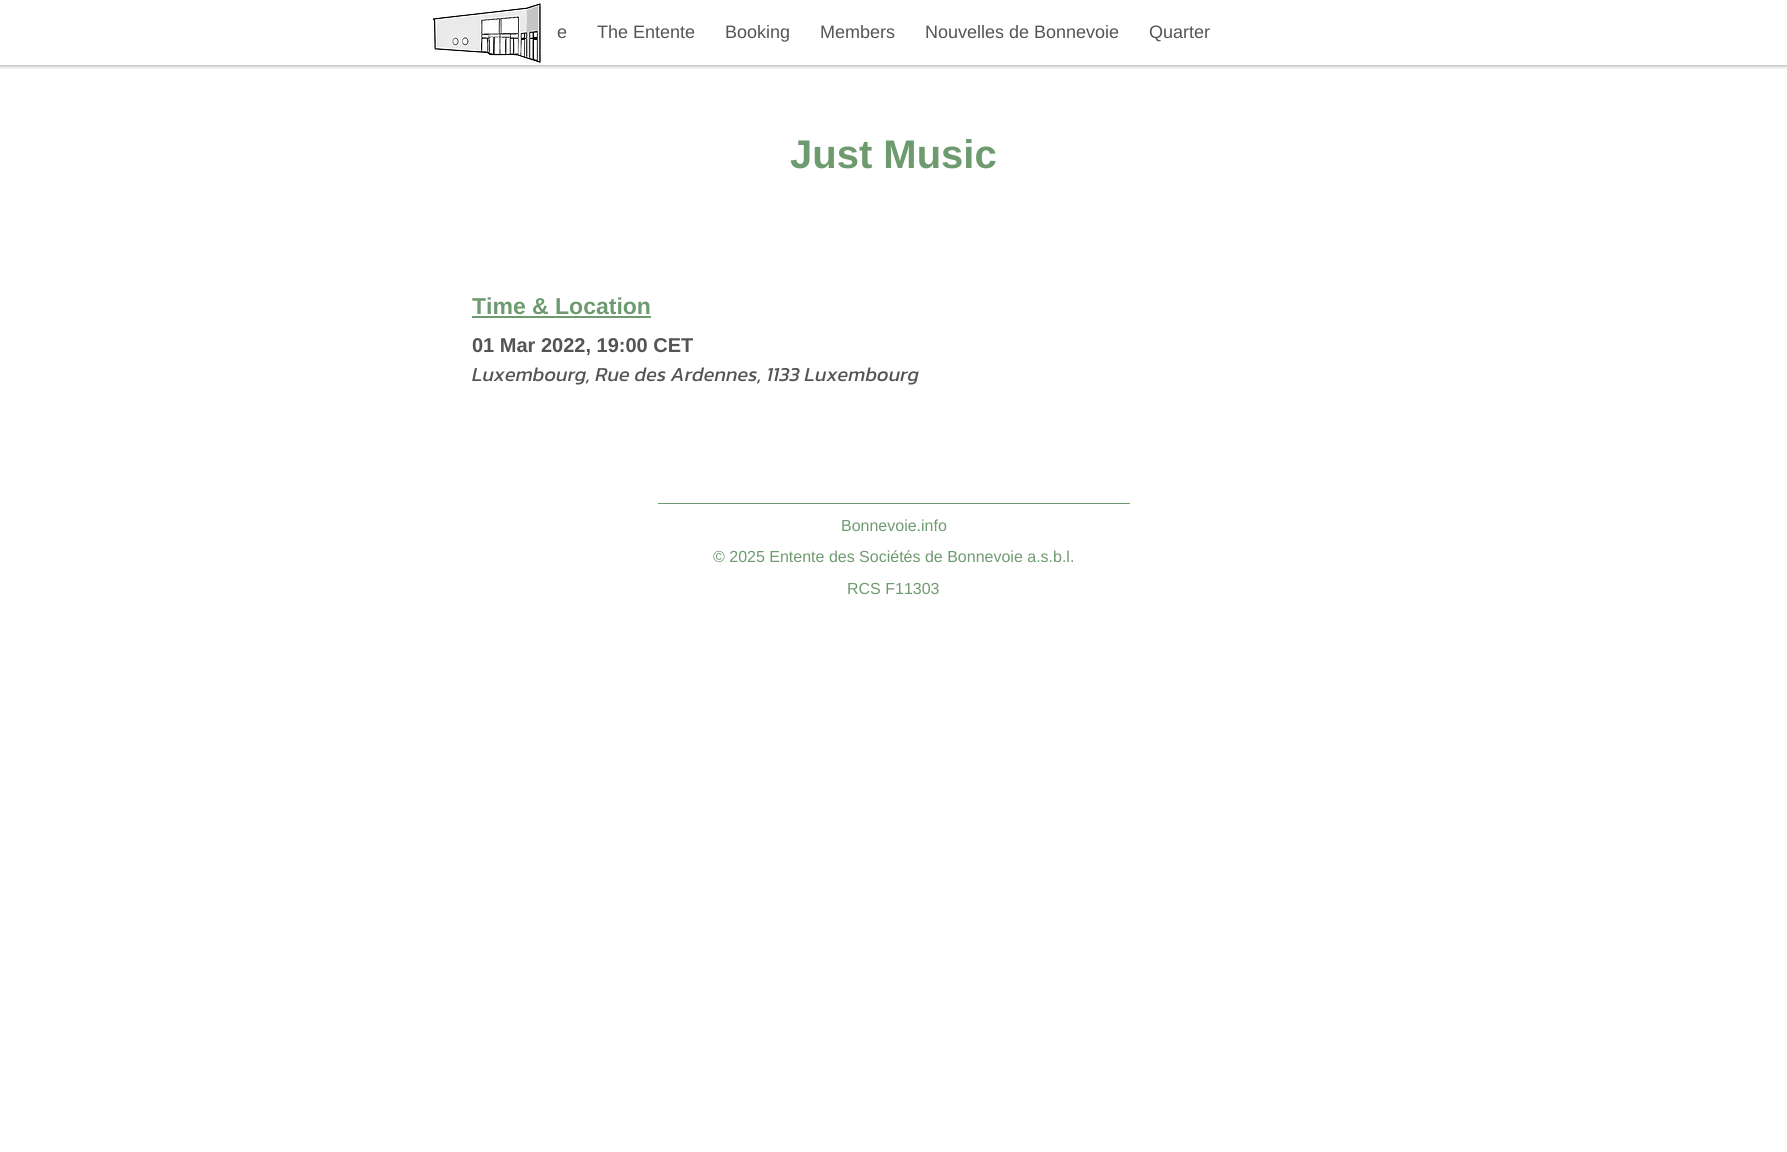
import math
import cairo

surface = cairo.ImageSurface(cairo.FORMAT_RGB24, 1787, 1152)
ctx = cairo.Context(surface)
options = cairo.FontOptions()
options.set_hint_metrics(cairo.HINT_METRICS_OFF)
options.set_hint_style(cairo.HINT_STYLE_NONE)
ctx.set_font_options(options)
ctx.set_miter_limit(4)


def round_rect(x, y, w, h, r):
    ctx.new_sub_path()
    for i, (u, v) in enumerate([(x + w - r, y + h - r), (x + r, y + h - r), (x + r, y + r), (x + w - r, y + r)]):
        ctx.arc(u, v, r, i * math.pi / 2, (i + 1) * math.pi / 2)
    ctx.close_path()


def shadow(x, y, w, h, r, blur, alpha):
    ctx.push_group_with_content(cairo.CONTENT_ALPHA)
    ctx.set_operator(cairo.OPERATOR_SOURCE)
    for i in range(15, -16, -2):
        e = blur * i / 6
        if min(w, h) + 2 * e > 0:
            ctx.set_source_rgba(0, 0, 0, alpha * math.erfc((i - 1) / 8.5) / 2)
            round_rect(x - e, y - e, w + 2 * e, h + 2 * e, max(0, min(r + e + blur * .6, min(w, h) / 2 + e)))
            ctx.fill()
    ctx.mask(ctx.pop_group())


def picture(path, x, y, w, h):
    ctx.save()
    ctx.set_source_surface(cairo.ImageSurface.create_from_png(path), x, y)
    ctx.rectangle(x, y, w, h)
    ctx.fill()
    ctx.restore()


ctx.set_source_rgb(1, 1, 1)
ctx.paint()
ctx.save()
ctx.rectangle(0, 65, 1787, 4)
ctx.clip()
ctx.set_source_rgb(0, 0, 0)
shadow(0, 0, 1787, 65, 0, 2.5, 0.5)
ctx.restore()
picture("img1.png", 431, 0, 120, 65)
ctx.select_font_face("Liberation Sans")
ctx.set_font_size(18)
ctx.set_source_rgb(0.329, 0.329, 0.329)
ctx.move_to(557, 38)
ctx.show_text("e")
ctx.move_to(597, 38)
ctx.show_text("The Entente")
ctx.move_to(725, 38)
ctx.show_text("Booking")
ctx.move_to(820, 38)
ctx.show_text("Members")
ctx.move_to(925, 38)
ctx.show_text("Nouvelles de Bonnevoie")
ctx.move_to(1149, 38)
ctx.show_text("Quarter")
ctx.select_font_face("Liberation Sans", cairo.FONT_SLANT_NORMAL, cairo.FONT_WEIGHT_BOLD)
ctx.set_font_size(40)
ctx.set_source_rgb(0.431, 0.604, 0.435)
ctx.move_to(790, 168)
ctx.show_text("Just Music")
ctx.set_font_size(23)
ctx.move_to(472, 314)
ctx.show_text("Time & Location")
ctx.rectangle(472, 316, 179, 2)
ctx.fill()
ctx.set_font_size(20)
ctx.set_source_rgb(0.329, 0.329, 0.329)
ctx.move_to(472, 352)
ctx.show_text("01 Mar 2022, 19:00 CET")
ctx.select_font_face("Kanit", cairo.FONT_SLANT_ITALIC)
ctx.move_to(472, 381)
ctx.show_text("Luxembourg, Rue des Ardennes, 1133 Luxembourg")
ctx.set_source_rgb(0.431, 0.604, 0.435)
ctx.rectangle(658, 503, 472, 1)
ctx.fill()
ctx.select_font_face("Liberation Sans")
ctx.set_font_size(16)
ctx.move_to(841, 531)
ctx.show_text("Bonnevoie.info")
ctx.move_to(713, 562)
ctx.show_text("© 2025 Entente des Sociétés de Bonnevoie a.s.b.l.")
ctx.move_to(847, 594)
ctx.show_text("RCS F11303")
surface.write_to_png("page.png")
